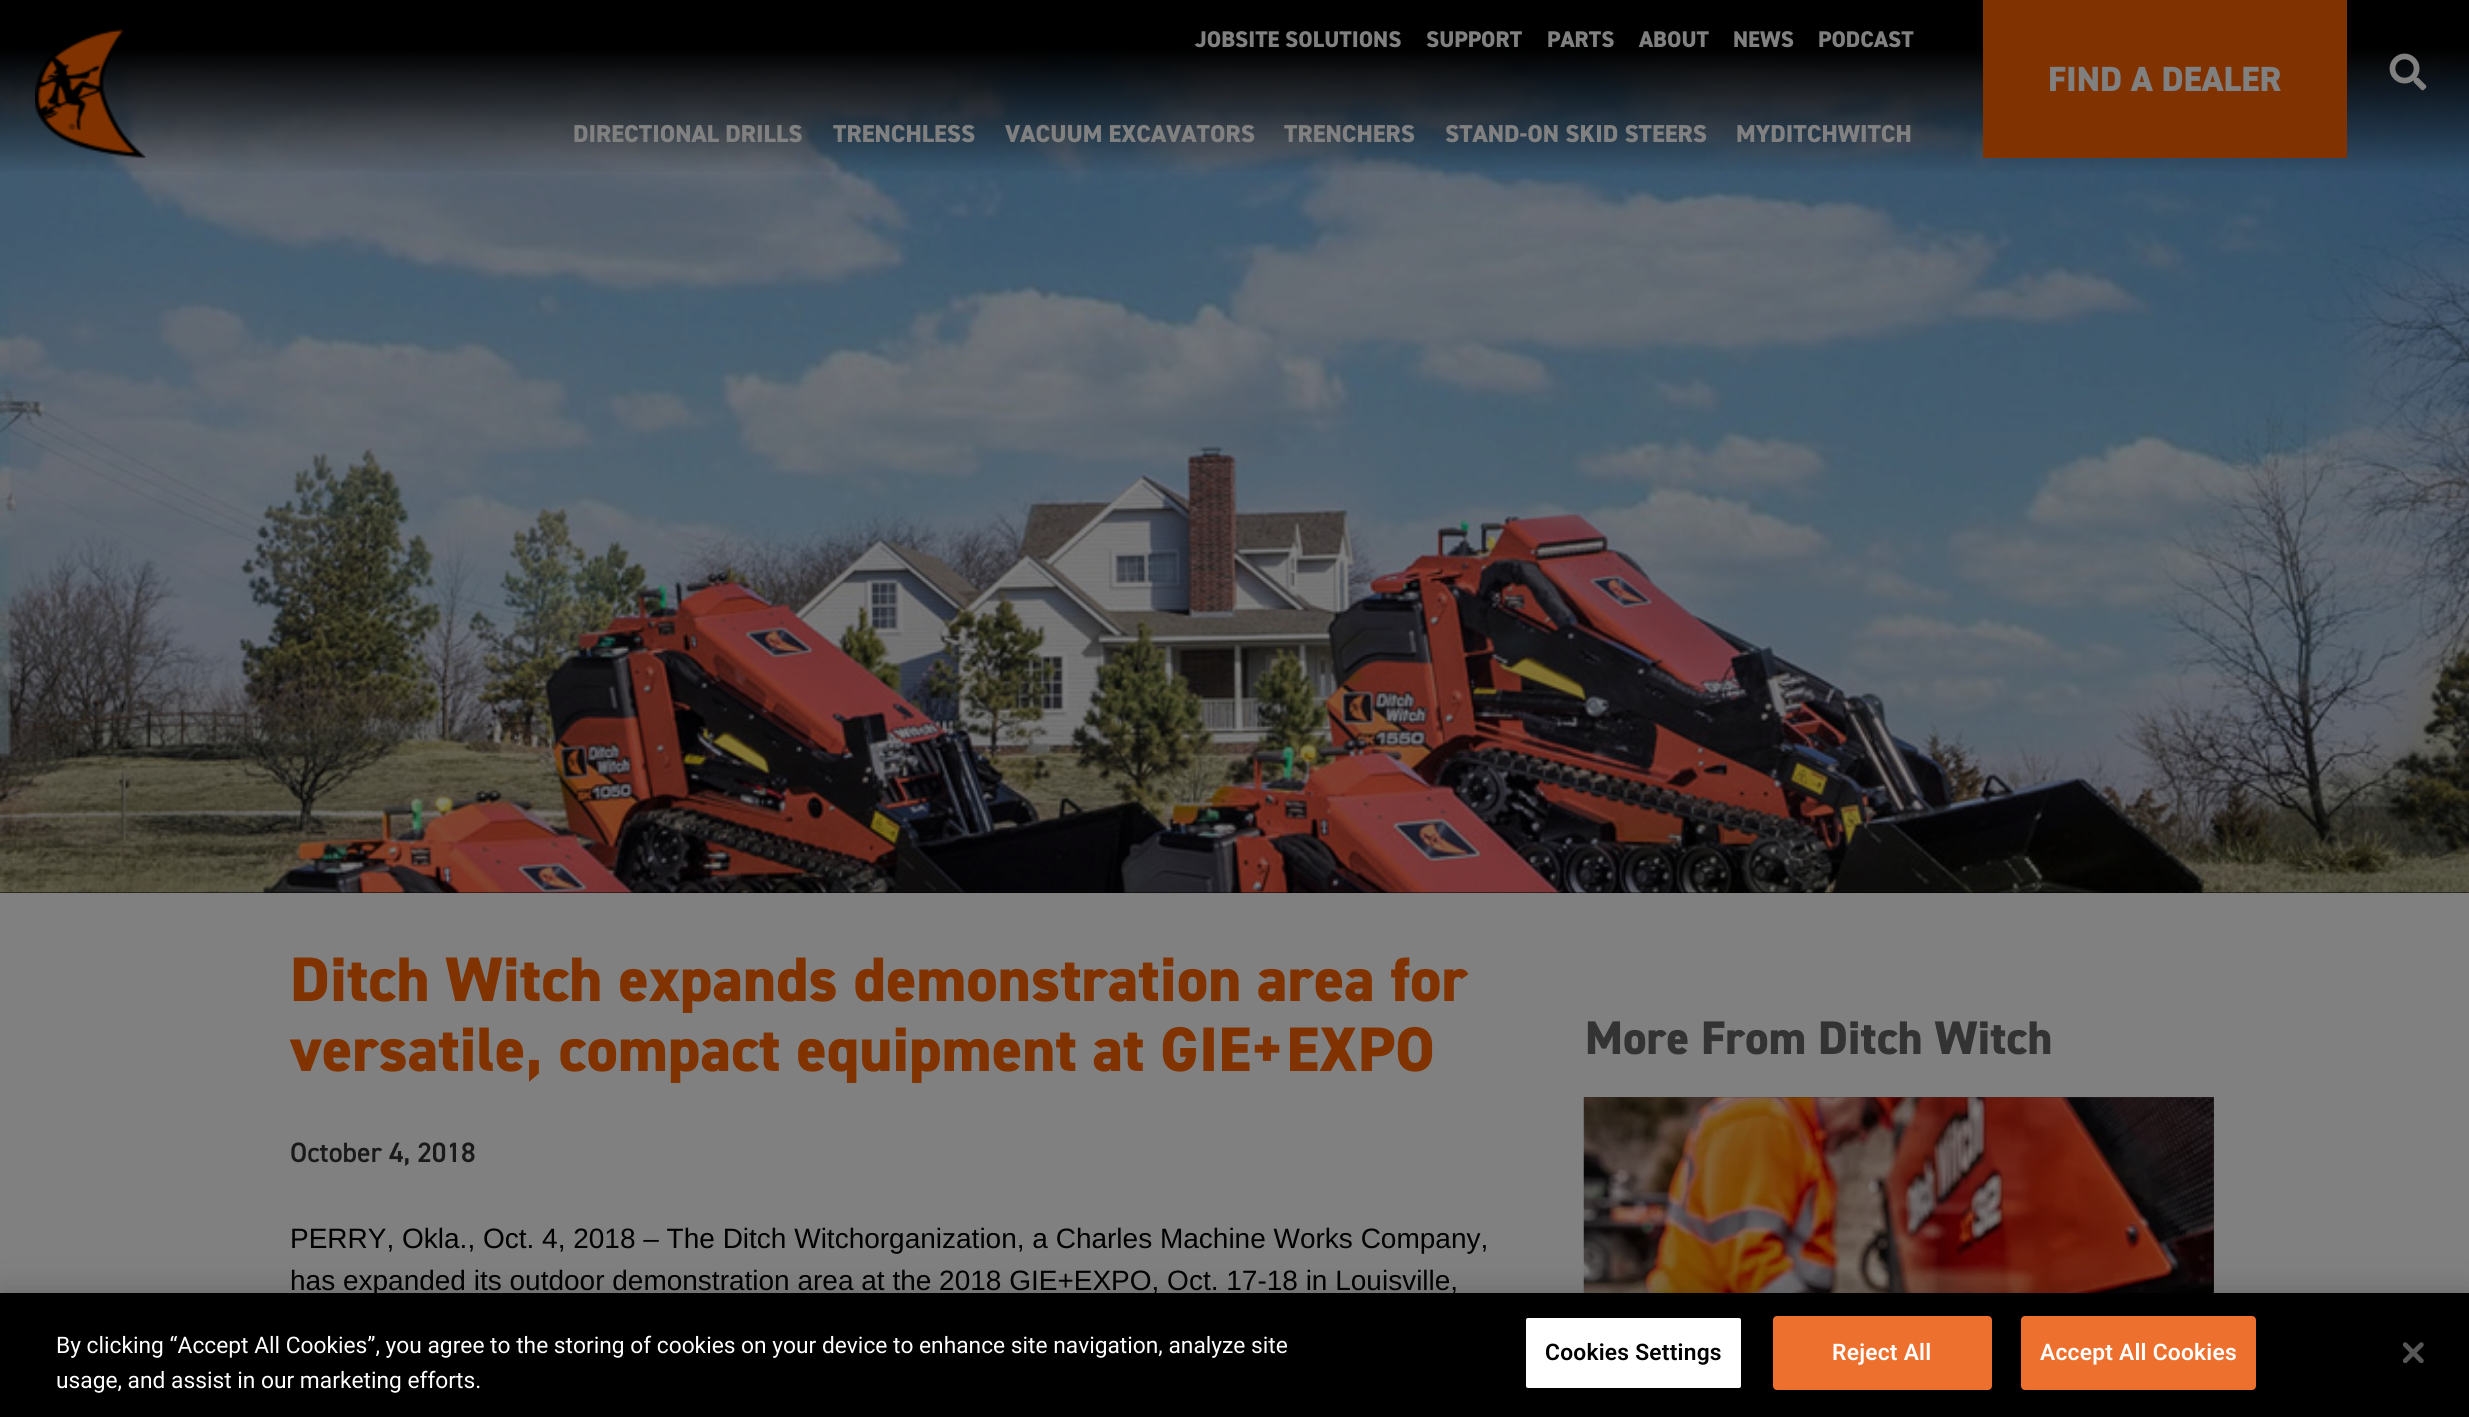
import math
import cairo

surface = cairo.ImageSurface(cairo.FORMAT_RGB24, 2469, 1417)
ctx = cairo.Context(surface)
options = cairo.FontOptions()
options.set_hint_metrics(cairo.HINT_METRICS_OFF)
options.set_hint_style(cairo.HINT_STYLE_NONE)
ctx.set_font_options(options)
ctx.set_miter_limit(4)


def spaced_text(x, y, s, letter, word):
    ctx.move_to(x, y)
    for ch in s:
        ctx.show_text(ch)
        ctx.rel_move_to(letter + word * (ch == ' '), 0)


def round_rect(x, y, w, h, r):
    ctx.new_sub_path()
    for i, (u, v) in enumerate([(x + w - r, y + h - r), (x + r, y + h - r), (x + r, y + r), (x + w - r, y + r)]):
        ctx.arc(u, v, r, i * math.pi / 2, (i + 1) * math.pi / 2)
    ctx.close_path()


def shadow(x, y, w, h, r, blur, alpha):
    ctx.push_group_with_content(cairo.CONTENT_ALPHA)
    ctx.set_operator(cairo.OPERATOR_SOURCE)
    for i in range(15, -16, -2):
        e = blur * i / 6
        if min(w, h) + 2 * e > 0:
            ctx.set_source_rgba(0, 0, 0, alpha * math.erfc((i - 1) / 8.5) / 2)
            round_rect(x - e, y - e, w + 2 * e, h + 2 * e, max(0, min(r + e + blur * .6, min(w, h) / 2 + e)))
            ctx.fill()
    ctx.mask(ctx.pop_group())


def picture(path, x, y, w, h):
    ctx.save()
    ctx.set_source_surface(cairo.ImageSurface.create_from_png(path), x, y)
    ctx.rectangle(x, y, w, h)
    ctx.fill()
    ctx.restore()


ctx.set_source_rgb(0, 0, 0)
ctx.paint()
picture("img3.png", 0, 50, 2469, 843)
gradient = cairo.LinearGradient(1235, 0, 1235, 175)
gradient.add_color_stop_rgba(0.28, 0, 0, 0, 1)
gradient.add_color_stop_rgba(1, 0, 0, 0, 0)
ctx.set_source(gradient)
ctx.rectangle(0, 50, 2469, 122)
ctx.fill()
picture("img1.png", 35, 29, 111, 129)
ctx.select_font_face("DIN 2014 ExtraBold")
ctx.set_font_size(22.75)
ctx.set_source_rgb(0.502, 0.502, 0.502)
ctx.move_to(1195, 47)
ctx.show_text("JOBSITE SOLUTIONS")
ctx.move_to(1426, 47)
ctx.show_text("SUPPORT")
ctx.move_to(1547, 47)
ctx.show_text("PARTS")
ctx.move_to(1639, 47)
ctx.show_text("ABOUT")
ctx.move_to(1733, 47)
ctx.show_text("NEWS")
ctx.move_to(1818, 47)
ctx.show_text("PODCAST")
ctx.set_font_size(24.5)
ctx.move_to(573, 142)
ctx.show_text("DIRECTIONAL DRILLS")
ctx.move_to(833, 142)
ctx.show_text("TRENCHLESS")
ctx.move_to(1005, 142)
ctx.show_text("VACUUM EXCAVATORS")
ctx.move_to(1284, 142)
ctx.show_text("TRENCHERS")
ctx.move_to(1445, 142)
ctx.show_text("STAND-ON SKID STEERS")
ctx.move_to(1736, 142)
ctx.show_text("MYDITCHWITCH")
ctx.set_source_rgb(0.502, 0.2, 0)
ctx.rectangle(1983, 0, 364, 158)
ctx.fill()
ctx.set_font_size(35)
ctx.set_source_rgb(0.502, 0.502, 0.502)
ctx.move_to(2048, 91)
ctx.show_text("FIND A DEALER")
picture("img2.png", 2389, 53, 38, 38)
ctx.rectangle(0, 893, 2469, 400)
ctx.fill()
ctx.set_font_size(63)
ctx.set_source_rgb(0.502, 0.2, 0)
ctx.move_to(290, 1001)
ctx.show_text("Ditch Witch expands demonstration area for")
ctx.move_to(290, 1071)
ctx.show_text("versatile, compact equipment at GIE+EXPO")
ctx.select_font_face("DIN 2014 SemiBold")
ctx.set_font_size(28)
ctx.set_source_rgb(0.102, 0.102, 0.102)
ctx.move_to(290, 1162)
ctx.show_text("October 4, 2018")
ctx.select_font_face("Liberation Sans")
ctx.set_source_rgb(0, 0, 0)
ctx.move_to(290, 1248)
ctx.show_text("PERRY, Okla., Oct. 4, 2018 – The Ditch Witchorganization, a Charles Machine Works Company,")
ctx.move_to(290, 1290)
ctx.show_text("has expanded its outdoor demonstration area at the 2018 GIE+EXPO, Oct. 17-18 in Louisville,")
ctx.select_font_face("DIN 2014 ExtraBold")
ctx.set_font_size(47.25)
ctx.set_source_rgb(0.2, 0.2, 0.2)
ctx.move_to(1585, 1054)
ctx.show_text("More From Ditch Witch")
ctx.set_source_rgb(0.255, 0.176, 0.153)
ctx.rectangle(1584, 1097, 630, 196)
ctx.fill()
picture("img4.png", 1583, 1097, 631, 196)
ctx.set_source_rgb(0, 0, 0)
shadow(0, 1293, 2469, 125, 0, 16, 0.2)
ctx.select_font_face("Roboto")
ctx.set_font_size(22.75)
ctx.set_source_rgb(1, 1, 1)
ctx.move_to(56, 1353)
ctx.show_text("By clicking “Accept All Cookies”, you agree to the storing of cookies on your device to enhance site navigation, analyze site")
ctx.move_to(56, 1388)
ctx.show_text("usage, and assist in our marketing efforts.")
round_rect(1525, 1317, 217, 72, 3)
ctx.fill_preserve()
ctx.set_source_rgb(0, 0, 0)
ctx.stroke()
ctx.select_font_face("Roboto SemiBold")
spaced_text(1545, 1360, "Cookies Settings", 0.25, 0)
ctx.set_source_rgb(0.929, 0.439, 0.18)
round_rect(1774, 1317, 217, 72, 3)
ctx.fill_preserve()
ctx.stroke()
ctx.set_source_rgb(1, 1, 1)
spaced_text(1832, 1360, "Reject All", 0.25, 0)
ctx.set_source_rgb(0.929, 0.439, 0.18)
round_rect(2022, 1317, 233, 72, 3)
ctx.fill_preserve()
ctx.stroke()
ctx.set_source_rgb(1, 1, 1)
spaced_text(2040, 1360, "Accept All Cookies", 0.25, 0)
picture("img5.png", 2403, 1342, 21, 21)
surface.write_to_png("page.png")
